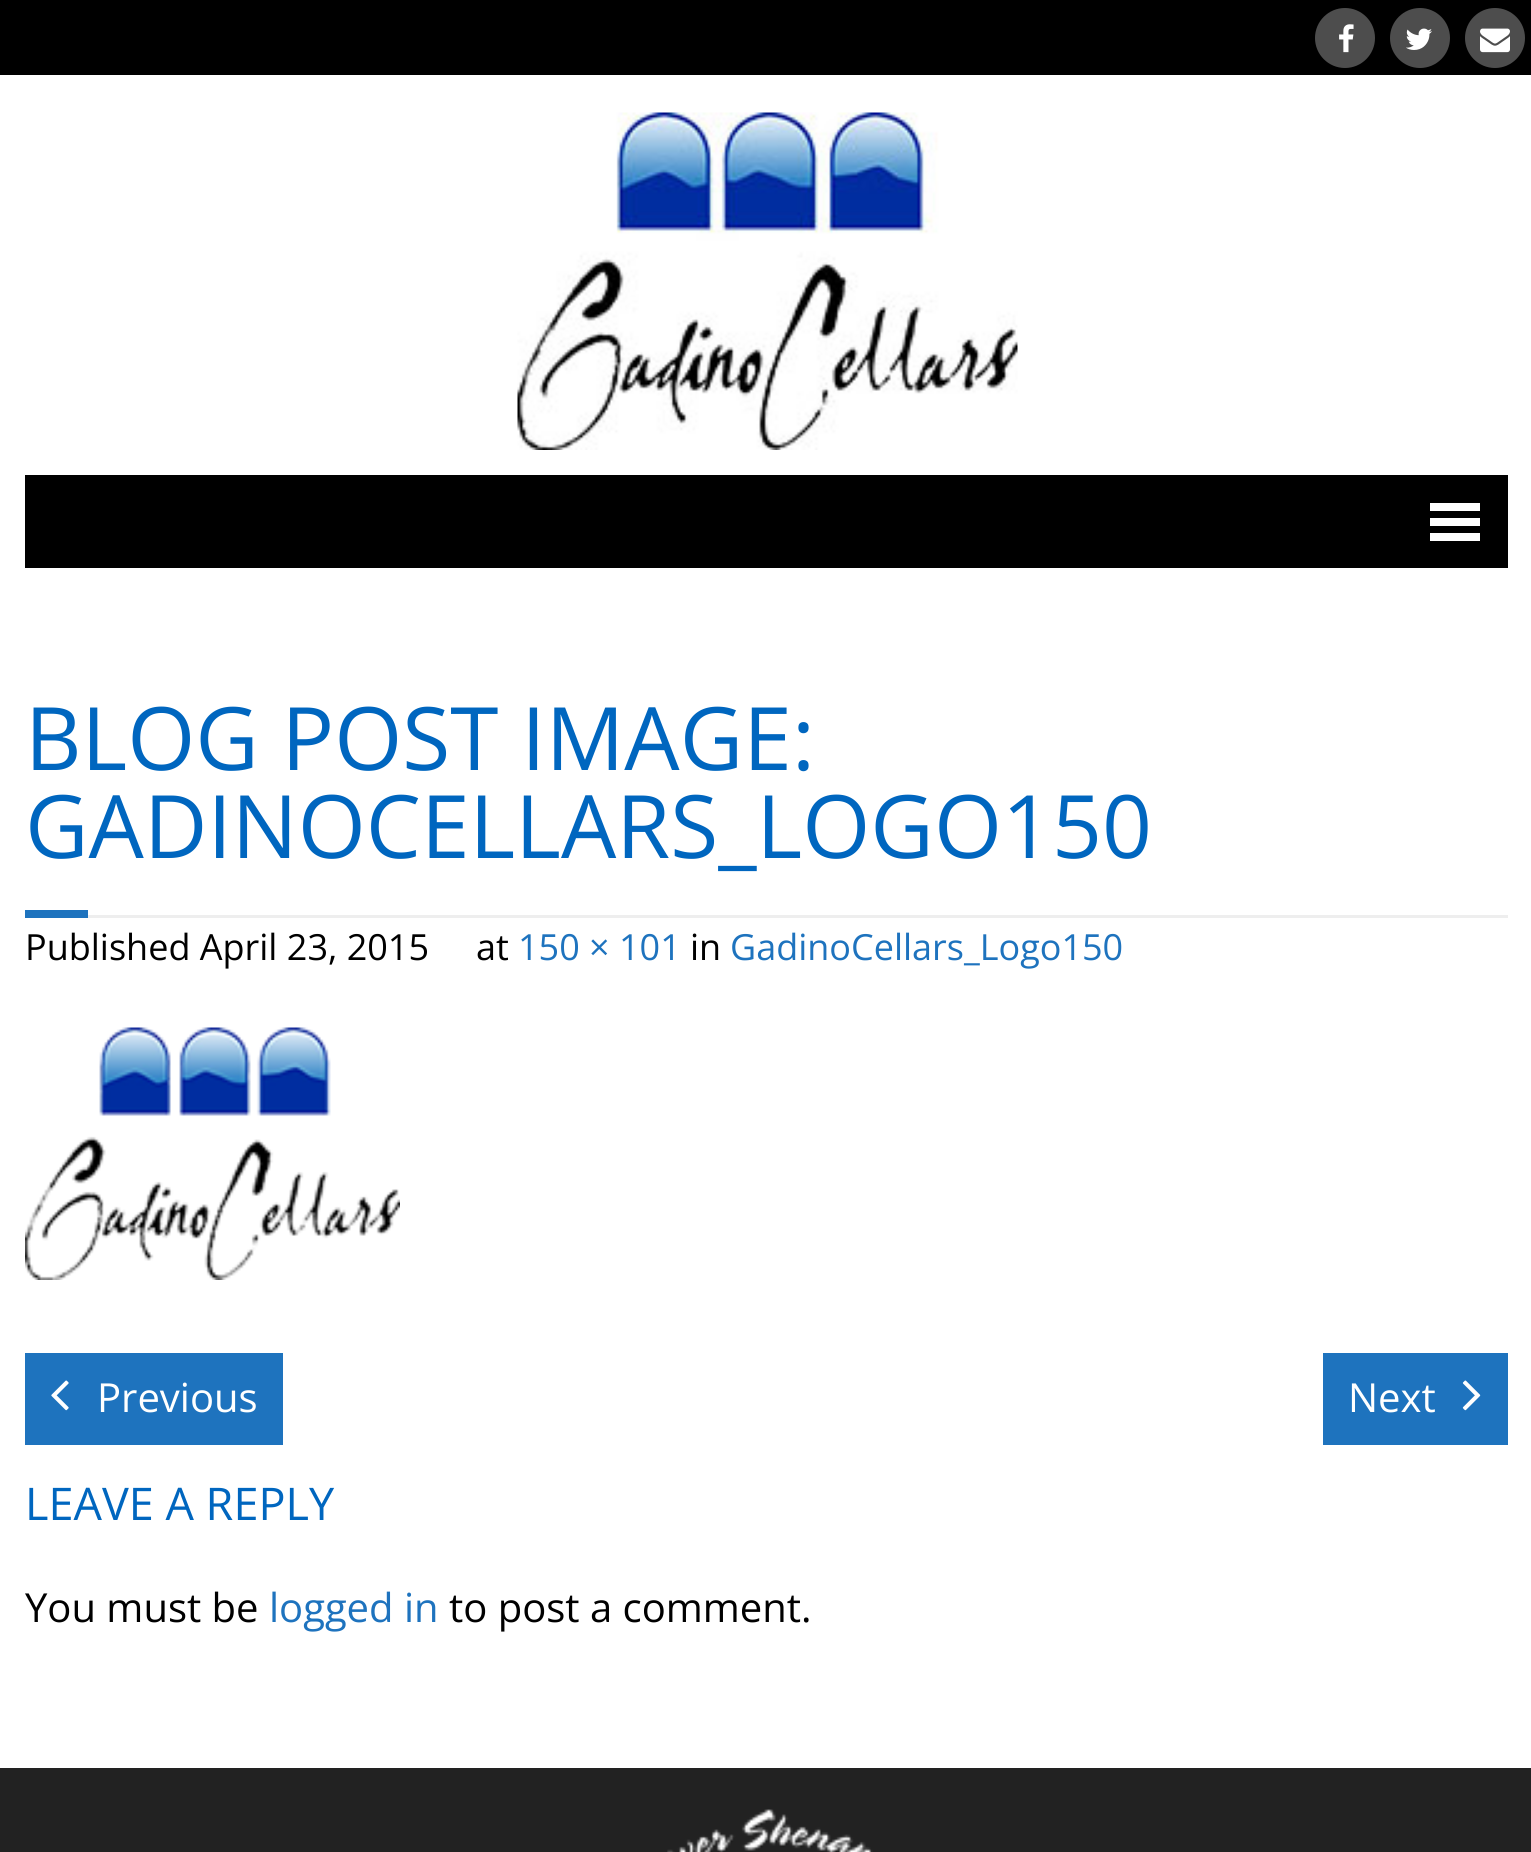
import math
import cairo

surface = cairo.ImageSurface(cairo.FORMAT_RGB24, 1531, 1852)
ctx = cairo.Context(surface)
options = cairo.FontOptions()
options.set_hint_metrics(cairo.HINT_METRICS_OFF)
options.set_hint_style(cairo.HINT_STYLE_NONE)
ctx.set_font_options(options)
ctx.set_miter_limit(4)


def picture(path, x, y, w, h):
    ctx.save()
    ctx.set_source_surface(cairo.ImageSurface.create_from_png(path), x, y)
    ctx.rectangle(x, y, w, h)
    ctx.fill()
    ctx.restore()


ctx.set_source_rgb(1, 1, 1)
ctx.paint()
ctx.set_source_rgb(0, 0, 0)
ctx.rectangle(0, 0, 1531, 75)
ctx.fill()
ctx.set_source_rgb(0.302, 0.302, 0.302)
ctx.arc(1345, 38, 30, 0, 2 * math.pi)
ctx.fill()
picture("img1.png", 1339, 24, 15, 29)
ctx.arc(1420, 38, 30, 0, 2 * math.pi)
ctx.fill()
picture("img2.png", 1406, 28, 26, 22)
ctx.arc(1495, 38, 30, 0, 2 * math.pi)
ctx.fill()
picture("img3.png", 1480, 28, 30, 25)
picture("img4.png", 517, 112, 501, 338)
ctx.set_source_rgb(0, 0, 0)
ctx.rectangle(25, 475, 1483, 93)
ctx.fill()
ctx.set_source_rgb(1, 1, 1)
ctx.rectangle(1430, 503, 50, 8)
ctx.fill()
ctx.rectangle(1430, 518, 50, 8)
ctx.fill()
ctx.rectangle(1430, 533, 50, 8)
ctx.fill()
ctx.select_font_face("Open Sans")
ctx.set_font_size(87.5)
ctx.set_source_rgb(0, 0.4, 0.749)
ctx.move_to(25, 770)
ctx.show_text("BLOG POST IMAGE:")
ctx.move_to(25, 858)
ctx.show_text("GADINOCELLARS_LOGO150")
ctx.set_source_rgb(0.118, 0.451, 0.745)
ctx.rectangle(25, 910, 63, 8)
ctx.fill()
ctx.set_source_rgb(0.933, 0.933, 0.933)
ctx.rectangle(88, 915, 1420, 3)
ctx.fill()
ctx.set_font_size(36)
ctx.set_source_rgb(0, 0, 0)
ctx.move_to(25, 960)
ctx.show_text("Published April 23, 2015")
ctx.move_to(476, 960)
ctx.show_text("at")
ctx.set_source_rgb(0.118, 0.451, 0.745)
ctx.move_to(518, 960)
ctx.show_text("150 × 101")
ctx.set_source_rgb(0, 0, 0)
ctx.move_to(690, 960)
ctx.show_text("in")
ctx.set_source_rgb(0.118, 0.451, 0.745)
ctx.move_to(730, 960)
ctx.show_text("GadinoCellars_Logo150")
picture("img5.png", 25, 1027, 375, 253)
ctx.rectangle(25, 1353, 258, 92)
ctx.fill()
picture("img6.png", 51, 1380, 18, 31)
ctx.set_font_size(40)
ctx.set_source_rgb(1, 1, 1)
ctx.move_to(97, 1412)
ctx.show_text("Previous")
ctx.set_source_rgb(0.118, 0.451, 0.745)
ctx.rectangle(1323, 1353, 185, 92)
ctx.fill()
ctx.set_source_rgb(1, 1, 1)
ctx.move_to(1348, 1412)
ctx.show_text("Next")
picture("img7.png", 1462, 1380, 19, 31)
ctx.set_font_size(45)
ctx.set_source_rgb(0, 0.4, 0.749)
ctx.move_to(25, 1520)
ctx.show_text("LEAVE A REPLY")
ctx.set_font_size(40)
ctx.set_source_rgb(0, 0, 0)
ctx.move_to(25, 1622)
ctx.show_text("You must be")
ctx.set_source_rgb(0.118, 0.451, 0.745)
ctx.move_to(269, 1622)
ctx.show_text("logged in")
ctx.set_source_rgb(0, 0, 0)
ctx.move_to(449, 1622)
ctx.show_text("to post a comment.")
ctx.set_source_rgb(0.133, 0.133, 0.133)
ctx.rectangle(0, 1768, 1531, 84)
ctx.fill()
picture("img8.png", 667, 1809, 206, 43)
surface.write_to_png("page.png")
